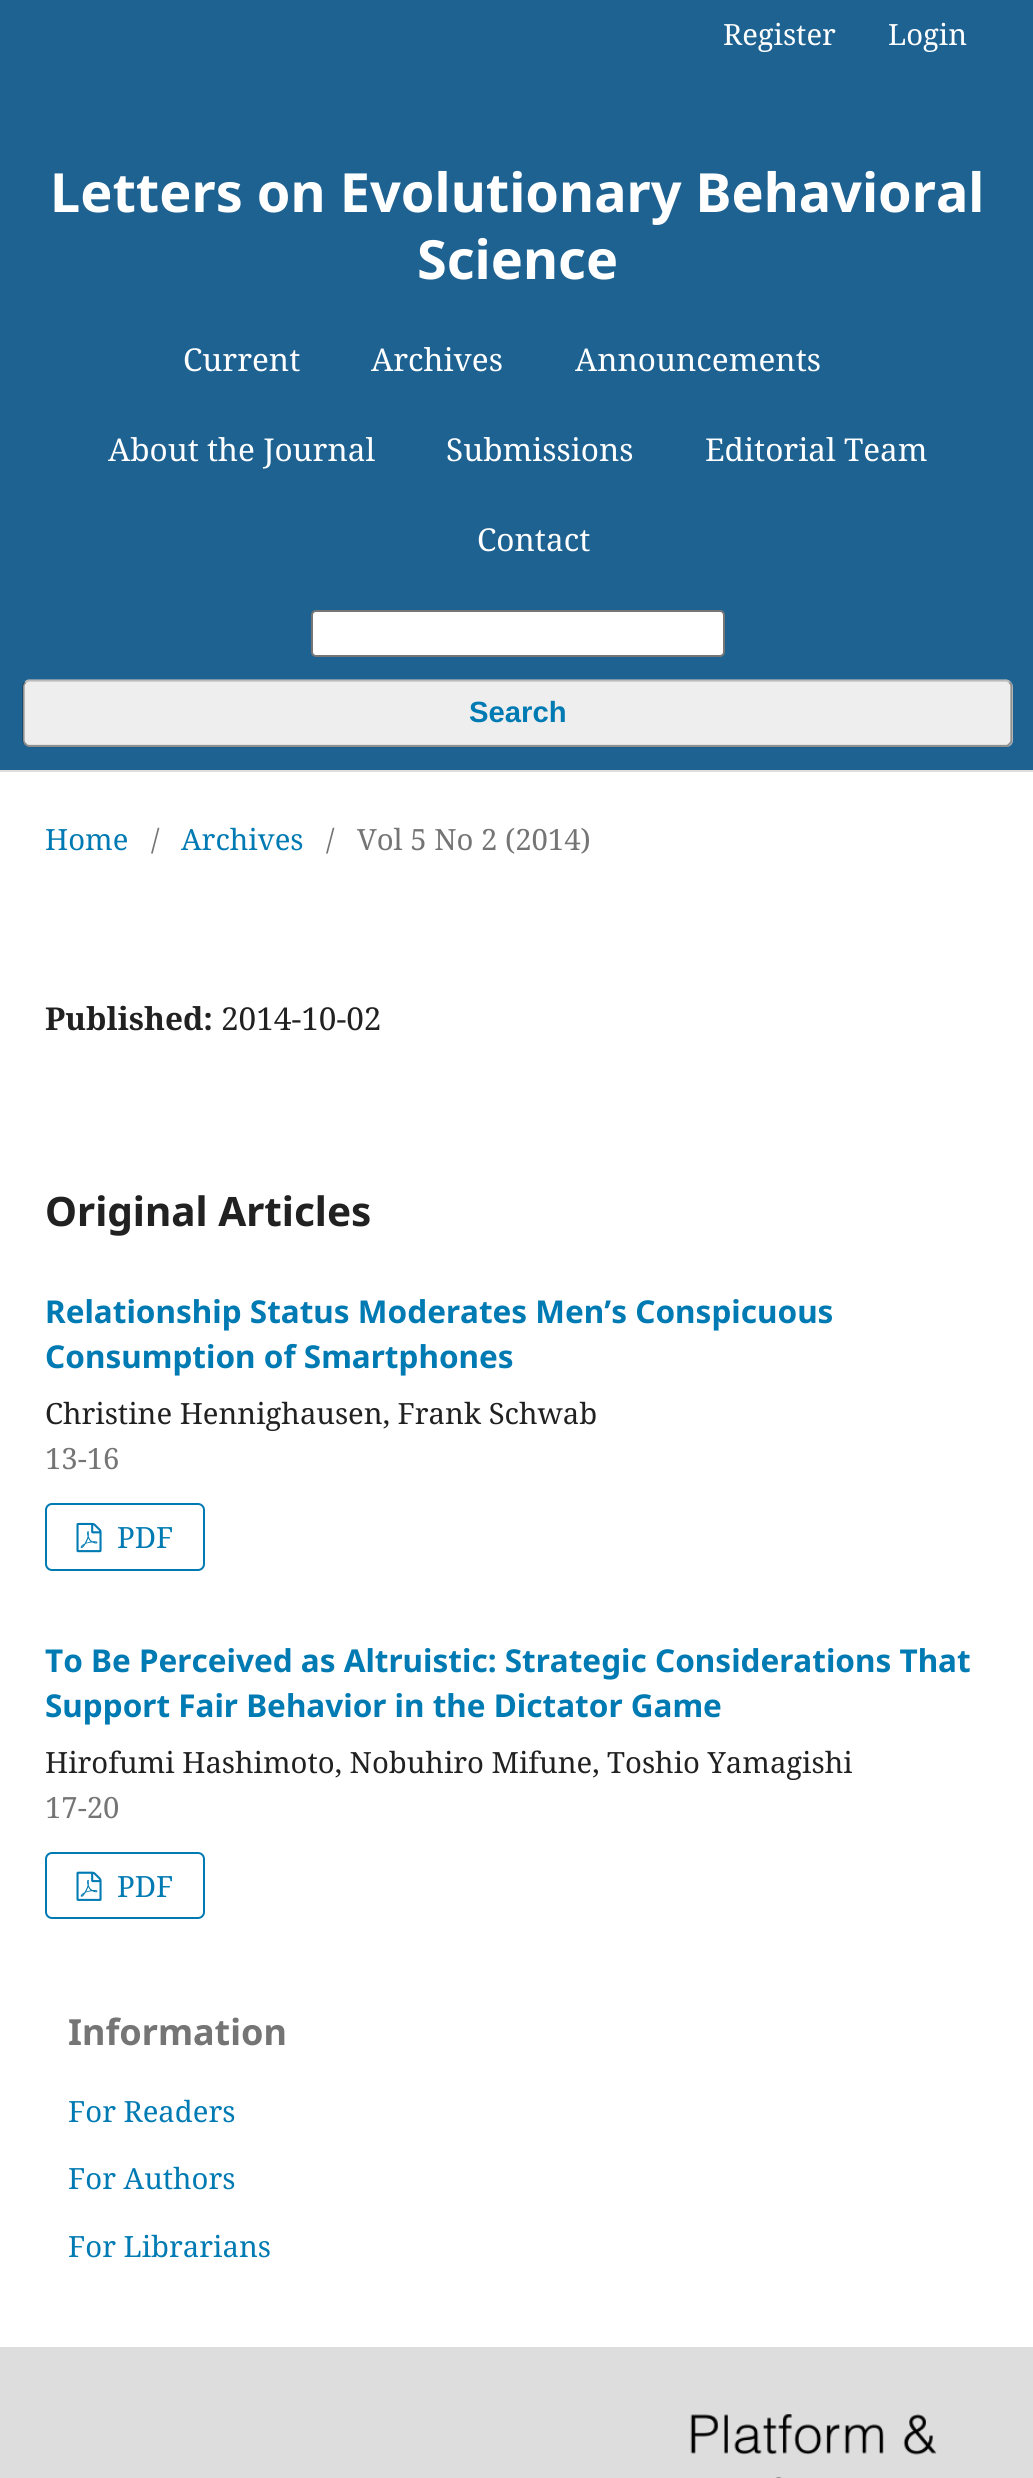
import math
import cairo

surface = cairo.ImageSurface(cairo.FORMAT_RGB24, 1033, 2478)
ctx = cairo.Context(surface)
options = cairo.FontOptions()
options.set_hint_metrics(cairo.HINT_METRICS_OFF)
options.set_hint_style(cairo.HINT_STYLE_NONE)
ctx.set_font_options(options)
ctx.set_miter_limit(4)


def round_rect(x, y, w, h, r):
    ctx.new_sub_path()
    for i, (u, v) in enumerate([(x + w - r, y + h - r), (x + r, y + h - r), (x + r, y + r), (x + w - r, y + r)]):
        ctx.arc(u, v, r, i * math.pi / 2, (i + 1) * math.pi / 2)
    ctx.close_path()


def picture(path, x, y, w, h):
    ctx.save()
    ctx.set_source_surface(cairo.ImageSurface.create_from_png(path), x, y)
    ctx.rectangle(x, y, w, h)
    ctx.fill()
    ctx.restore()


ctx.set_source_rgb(1, 1, 1)
ctx.paint()
ctx.set_source_rgb(0.118, 0.384, 0.573)
ctx.rectangle(0, 0, 1033, 770)
ctx.fill()
ctx.set_source_rgb(0.867, 0.867, 0.867)
ctx.rectangle(0, 770, 1033, 2)
ctx.fill()
ctx.select_font_face("Noto Serif")
ctx.set_font_size(29.25)
ctx.set_source_rgb(1, 1, 1)
ctx.move_to(723, 45)
ctx.show_text("Register")
ctx.move_to(888, 45)
ctx.show_text("Login")
ctx.select_font_face("Noto Sans", cairo.FONT_SLANT_NORMAL, cairo.FONT_WEIGHT_BOLD)
ctx.set_font_size(54)
ctx.move_to(50, 212)
ctx.show_text("Letters on Evolutionary Behavioral")
ctx.move_to(417, 279)
ctx.show_text("Science")
ctx.select_font_face("Noto Serif")
ctx.set_font_size(31.5)
ctx.move_to(183, 371)
ctx.show_text("Current")
ctx.move_to(371, 371)
ctx.show_text("Archives")
ctx.move_to(575, 371)
ctx.show_text("Announcements")
ctx.move_to(108, 461)
ctx.show_text("About the Journal")
ctx.move_to(446, 461)
ctx.show_text("Submissions")
ctx.move_to(705, 461)
ctx.show_text("Editorial Team")
ctx.move_to(477, 551)
ctx.show_text("Contact")
round_rect(312, 611, 412, 45, 4)
ctx.fill_preserve()
ctx.set_source_rgb(0.463, 0.463, 0.463)
ctx.stroke()
ctx.set_source_rgb(0.933, 0.933, 0.933)
round_rect(23, 680, 990, 67, 7)
ctx.fill()
ctx.new_path()
ctx.move_to(25.5, 682.5)
ctx.curve_to(26.5, 681, 28, 680.5, 29, 680.5)
ctx.line_to(1006, 680.5)
ctx.curve_to(1007, 680.5, 1008.5, 681, 1009.5, 682.5)
ctx.set_source_rgb(0.733, 0.733, 0.733)
ctx.set_line_width(2.2)
ctx.stroke()
ctx.new_path()
ctx.move_to(1009.5, 682.5)
ctx.curve_to(1011, 683.5, 1011.5, 685, 1011.5, 686)
ctx.line_to(1011.5, 740)
ctx.curve_to(1011.5, 741.5, 1011, 743, 1009.5, 744)
ctx.curve_to(1008.5, 745.5, 1007, 746, 1006, 746)
ctx.line_to(29, 746)
ctx.curve_to(28, 746, 26.5, 745.5, 25.5, 744)
ctx.curve_to(24, 743, 23.5, 741.5, 23.5, 740)
ctx.line_to(23.5, 686)
ctx.curve_to(23.5, 685, 24, 683.5, 25.5, 682.5)
ctx.set_source_rgba(0, 0, 0, 0.4)
ctx.stroke()
ctx.select_font_face("Liberation Sans", cairo.FONT_SLANT_NORMAL, cairo.FONT_WEIGHT_BOLD)
ctx.set_font_size(29.25)
ctx.set_source_rgb(0, 0.478, 0.698)
ctx.move_to(469, 722)
ctx.show_text("Search")
ctx.select_font_face("Noto Serif")
ctx.move_to(45, 850)
ctx.show_text("Home")
ctx.set_source_rgb(0.459, 0.459, 0.459)
ctx.move_to(151, 850)
ctx.show_text("/")
ctx.set_source_rgb(0, 0.478, 0.698)
ctx.move_to(181, 850)
ctx.show_text("Archives")
ctx.set_source_rgb(0.459, 0.459, 0.459)
ctx.move_to(326, 850)
ctx.show_text("/")
ctx.move_to(357, 850)
ctx.show_text("Vol 5 No 2 (2014)")
ctx.select_font_face("Noto Serif", cairo.FONT_SLANT_NORMAL, cairo.FONT_WEIGHT_BOLD)
ctx.set_font_size(31.5)
ctx.set_source_rgb(0.129, 0.129, 0.129)
ctx.move_to(45, 1030)
ctx.show_text("Published:")
ctx.select_font_face("Noto Serif")
ctx.move_to(221, 1030)
ctx.show_text("2014-10-02")
ctx.select_font_face("Noto Sans", cairo.FONT_SLANT_NORMAL, cairo.FONT_WEIGHT_BOLD)
ctx.set_font_size(40.5)
ctx.move_to(45, 1226)
ctx.show_text("Original Articles")
ctx.set_font_size(31.5)
ctx.set_source_rgb(0, 0.478, 0.698)
ctx.move_to(45, 1323)
ctx.show_text("Relationship Status Moderates Men’s Conspicuous")
ctx.move_to(45, 1368)
ctx.show_text("Consumption of Smartphones")
ctx.select_font_face("Noto Serif")
ctx.set_font_size(29.25)
ctx.set_source_rgb(0.129, 0.129, 0.129)
ctx.move_to(45, 1424)
ctx.show_text("Christine Hennighausen, Frank Schwab")
ctx.set_source_rgb(0.459, 0.459, 0.459)
ctx.move_to(45, 1469)
ctx.show_text("13-16")
round_rect(46, 1504, 158, 66, 6)
ctx.set_source_rgb(0, 0.478, 0.698)
ctx.set_line_width(2)
ctx.stroke()
picture("img1.png", 76, 1522, 26, 31)
ctx.move_to(117, 1548)
ctx.show_text("PDF")
ctx.select_font_face("Noto Sans", cairo.FONT_SLANT_NORMAL, cairo.FONT_WEIGHT_BOLD)
ctx.set_font_size(31.5)
ctx.move_to(45, 1672)
ctx.show_text("To Be Perceived as Altruistic: Strategic Considerations That")
ctx.move_to(45, 1717)
ctx.show_text("Support Fair Behavior in the Dictator Game")
ctx.select_font_face("Noto Serif")
ctx.set_font_size(29.25)
ctx.set_source_rgb(0.129, 0.129, 0.129)
ctx.move_to(45, 1773)
ctx.show_text("Hirofumi Hashimoto, Nobuhiro Mifune, Toshio Yamagishi")
ctx.set_source_rgb(0.459, 0.459, 0.459)
ctx.move_to(45, 1818)
ctx.show_text("17-20")
round_rect(46, 1853, 158, 65, 6)
ctx.set_source_rgb(0, 0.478, 0.698)
ctx.stroke()
picture("img2.png", 76, 1871, 26, 30)
ctx.move_to(117, 1897)
ctx.show_text("PDF")
ctx.select_font_face("Noto Sans", cairo.FONT_SLANT_NORMAL, cairo.FONT_WEIGHT_BOLD)
ctx.set_font_size(36)
ctx.set_source_rgb(0.459, 0.459, 0.459)
ctx.move_to(68, 2045)
ctx.show_text("Information")
ctx.select_font_face("Noto Serif")
ctx.set_font_size(29.25)
ctx.set_source_rgb(0, 0.478, 0.698)
ctx.move_to(68, 2122)
ctx.show_text("For Readers")
ctx.move_to(68, 2189)
ctx.show_text("For Authors")
ctx.move_to(68, 2257)
ctx.show_text("For Librarians")
ctx.set_source_rgb(0.867, 0.867, 0.867)
ctx.rectangle(0, 2347, 1033, 131)
ctx.fill()
picture("img3.png", 690, 2414, 247, 64)
surface.write_to_png("page.png")
